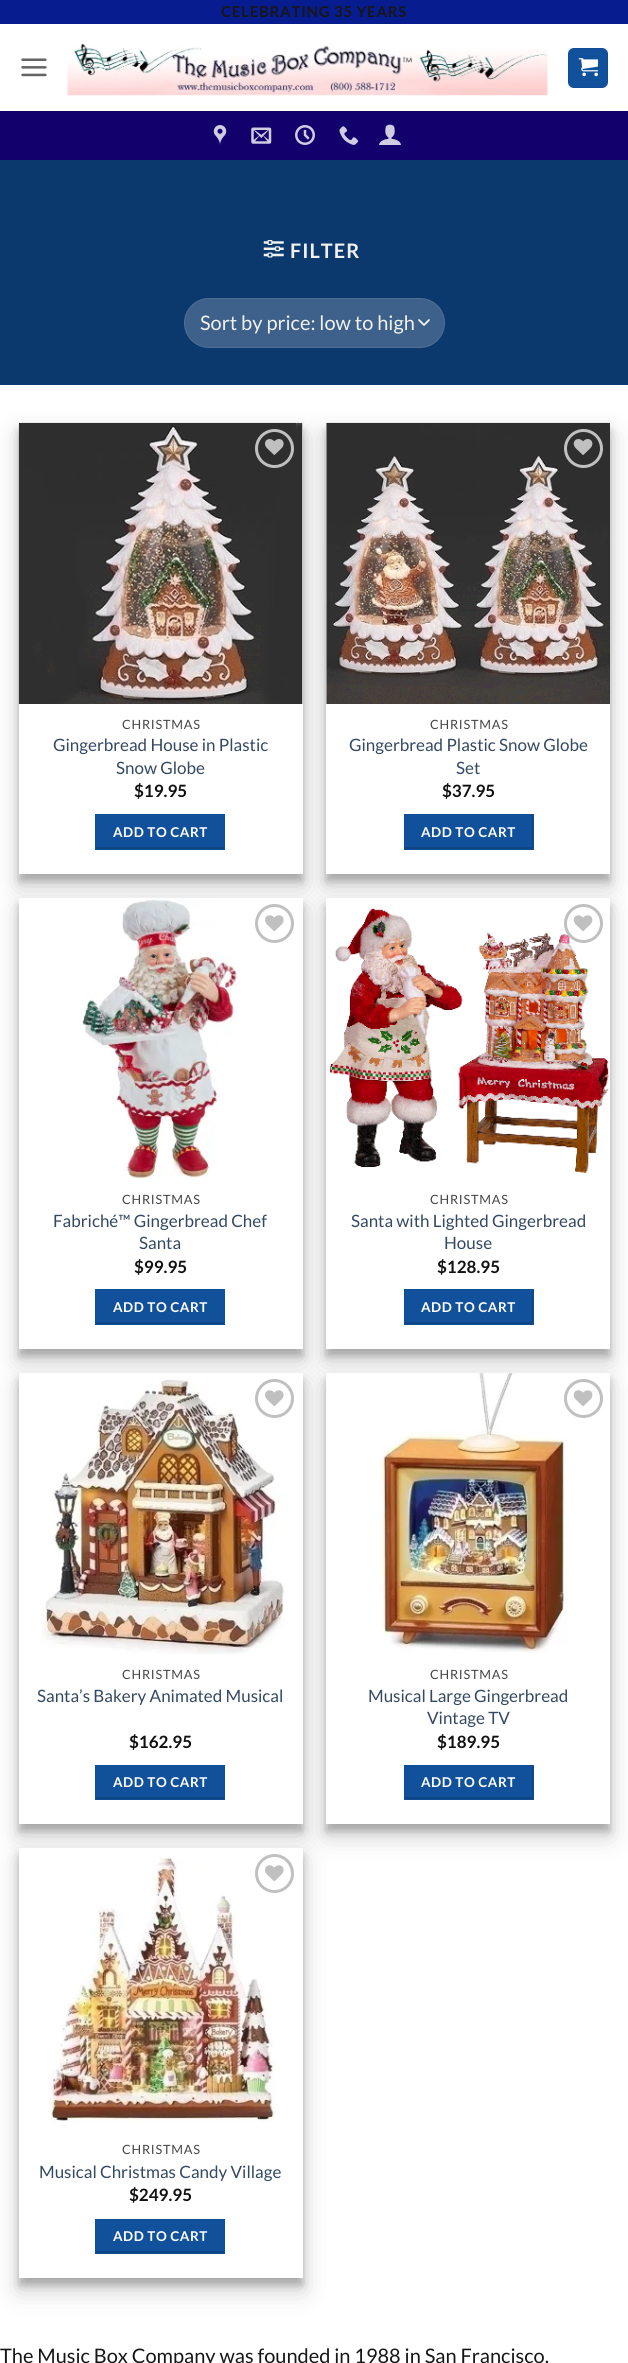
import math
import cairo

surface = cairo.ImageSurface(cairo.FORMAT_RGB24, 628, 2363)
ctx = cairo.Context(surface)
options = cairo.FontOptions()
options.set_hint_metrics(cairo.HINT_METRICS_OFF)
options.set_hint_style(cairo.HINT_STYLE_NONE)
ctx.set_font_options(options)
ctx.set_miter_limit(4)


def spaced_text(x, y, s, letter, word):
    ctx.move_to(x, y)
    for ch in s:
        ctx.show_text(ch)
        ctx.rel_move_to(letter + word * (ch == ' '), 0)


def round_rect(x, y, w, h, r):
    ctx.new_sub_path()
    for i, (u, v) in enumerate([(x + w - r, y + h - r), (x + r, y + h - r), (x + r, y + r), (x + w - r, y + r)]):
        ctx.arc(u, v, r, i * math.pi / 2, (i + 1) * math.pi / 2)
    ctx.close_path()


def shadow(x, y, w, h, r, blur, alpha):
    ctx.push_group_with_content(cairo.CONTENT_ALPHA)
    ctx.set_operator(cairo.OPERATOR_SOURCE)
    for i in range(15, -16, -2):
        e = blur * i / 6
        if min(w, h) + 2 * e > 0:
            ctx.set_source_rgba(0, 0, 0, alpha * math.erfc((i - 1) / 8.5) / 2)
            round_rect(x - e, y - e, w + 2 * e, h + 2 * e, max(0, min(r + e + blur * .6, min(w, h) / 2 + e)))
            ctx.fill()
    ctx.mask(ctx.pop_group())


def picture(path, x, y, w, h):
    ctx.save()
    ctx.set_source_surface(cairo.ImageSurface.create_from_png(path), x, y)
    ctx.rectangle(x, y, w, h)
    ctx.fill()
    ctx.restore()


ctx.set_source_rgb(1, 1, 1)
ctx.paint()
ctx.set_source_rgb(0.031, 0.11, 0.557)
ctx.rectangle(0, 0, 628, 24)
ctx.fill()
ctx.select_font_face("Lato", cairo.FONT_SLANT_NORMAL, cairo.FONT_WEIGHT_BOLD)
ctx.set_font_size(15)
ctx.set_source_rgb(0.09, 0.086, 0.086)
spaced_text(221, 17, "CELEBRATING 35 YEARS", 0.75, 0)
picture("img1.png", 21, 58, 26, 19)
picture("img2.png", 67, 44, 481, 52)
ctx.set_source_rgb(0.067, 0.318, 0.608)
round_rect(568, 48, 40, 40, 6)
ctx.fill()
ctx.rectangle(568.5, 48.5, 39, 39)
ctx.set_source_rgba(0, 0, 0, 0.05)
ctx.set_line_width(1)
ctx.stroke()
picture("img3.png", 578, 58, 20, 19)
ctx.set_source_rgb(0.071, 0, 0.427)
ctx.rectangle(0, 111, 628, 49)
ctx.fill()
ctx.set_source_rgb(0.071, 0.008, 0.392)
ctx.rectangle(19, 111, 591, 1)
ctx.fill()
picture("img4.png", 213, 125, 14, 20)
picture("img5.png", 251, 127, 21, 17)
picture("img6.png", 295, 125, 20, 20)
picture("img7.png", 339, 126, 20, 19)
picture("img8.png", 379, 124, 22, 21)
ctx.set_source_rgb(0.047, 0.224, 0.427)
ctx.rectangle(0, 160, 628, 225)
ctx.fill()
picture("img9.png", 263, 240, 21, 18)
ctx.set_font_size(20)
ctx.set_source_rgb(0.945, 0.945, 0.945)
spaced_text(290, 258, "FILTER", 1, 0)
ctx.set_source_rgb(0.239, 0.38, 0.541)
round_rect(184, 298, 261, 50, 25)
ctx.fill()
ctx.new_path()
ctx.move_to(419, 320)
ctx.line_to(424, 325)
ctx.line_to(429, 320)
ctx.set_source_rgb(1, 1, 1)
ctx.set_line_width(1.7)
ctx.set_line_cap(cairo.LINE_CAP_ROUND)
ctx.set_line_join(cairo.LINE_JOIN_ROUND)
ctx.stroke()
round_rect(184.5, 298.5, 260, 49, 24.5)
ctx.set_source_rgba(1, 1, 1, 0.09)
ctx.set_line_width(1)
ctx.set_line_cap(cairo.LINE_CAP_BUTT)
ctx.set_line_join(cairo.LINE_JOIN_MITER)
ctx.stroke()
ctx.select_font_face("Lato")
ctx.set_source_rgb(0.945, 0.945, 0.945)
ctx.move_to(200, 330)
ctx.show_text("Sort by price: low to high")
ctx.set_source_rgb(0, 0, 0)
shadow(19, 430, 284, 451, 0, 4, 0.22)
shadow(19, 435, 284, 451, 0, 12.5, 0.19)
ctx.set_source_rgb(1, 1, 1)
ctx.rectangle(19, 423, 284, 451)
ctx.fill()
picture("img10.png", 18, 422, 285, 282)
ctx.arc(274.5, 448.5, 18, 0, 2 * math.pi)
ctx.set_source_rgb(0.753, 0.753, 0.753)
ctx.set_line_width(3)
ctx.stroke()
picture("img11.png", 265, 439, 19, 16)
ctx.set_font_size(12.75)
ctx.set_source_rgb(0.271, 0.271, 0.271)
spaced_text(122, 729, "CHRISTMAS", 0.75, 0)
ctx.set_font_size(17)
ctx.set_source_rgb(0.2, 0.282, 0.384)
ctx.move_to(53, 751)
ctx.show_text("Gingerbread House in Plastic")
ctx.move_to(116, 774)
ctx.show_text("Snow Globe")
ctx.select_font_face("Lato", cairo.FONT_SLANT_NORMAL, cairo.FONT_WEIGHT_BOLD)
ctx.set_source_rgb(0.067, 0.067, 0.067)
ctx.move_to(134, 797)
ctx.show_text("$19.95")
ctx.set_source_rgb(0.067, 0.318, 0.608)
ctx.rectangle(96, 815, 128, 32)
ctx.fill()
ctx.rectangle(95.5, 814.5, 129, 35)
ctx.set_source_rgb(0.063, 0.302, 0.576)
ctx.set_line_width(1)
ctx.stroke()
ctx.set_font_size(13.5)
ctx.set_source_rgb(1, 1, 1)
spaced_text(113, 837, "ADD TO CART", 0.5, 0)
ctx.save()
ctx.rectangle(96, 815, 128, 34)
ctx.clip()
ctx.set_source_rgb(0.055, 0.271, 0.518)
ctx.set_fill_rule(cairo.FILL_RULE_EVEN_ODD)
ctx.new_path()
ctx.move_to(-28, 691)
ctx.line_to(348, 691)
ctx.line_to(348, 972)
ctx.line_to(-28, 972)
ctx.close_path()
ctx.move_to(96, 814)
ctx.line_to(224, 814)
ctx.line_to(224, 847)
ctx.line_to(96, 847)
ctx.close_path()
ctx.fill()
ctx.restore()
ctx.set_source_rgb(0, 0, 0)
shadow(326, 430, 284, 451, 0, 4, 0.22)
shadow(326, 435, 284, 451, 0, 12.5, 0.19)
ctx.set_source_rgb(1, 1, 1)
ctx.rectangle(326, 423, 284, 451)
ctx.fill()
picture("img12.png", 326, 422, 284, 282)
ctx.arc(583.5, 448.5, 18, 0, 2 * math.pi)
ctx.set_source_rgb(0.753, 0.753, 0.753)
ctx.set_line_width(3)
ctx.stroke()
picture("img13.png", 573, 439, 20, 16)
ctx.select_font_face("Lato")
ctx.set_font_size(12.75)
ctx.set_source_rgb(0.271, 0.271, 0.271)
spaced_text(430, 729, "CHRISTMAS", 0.75, 0)
ctx.set_font_size(17)
ctx.set_source_rgb(0.2, 0.282, 0.384)
ctx.move_to(349, 751)
ctx.show_text("Gingerbread Plastic Snow Globe")
ctx.move_to(456, 774)
ctx.show_text("Set")
ctx.select_font_face("Lato", cairo.FONT_SLANT_NORMAL, cairo.FONT_WEIGHT_BOLD)
ctx.set_source_rgb(0.067, 0.067, 0.067)
ctx.move_to(442, 797)
ctx.show_text("$37.95")
ctx.set_source_rgb(0.067, 0.318, 0.608)
ctx.rectangle(405, 815, 127, 32)
ctx.fill()
ctx.rectangle(404.5, 814.5, 129, 35)
ctx.set_source_rgb(0.063, 0.302, 0.576)
ctx.set_line_width(1)
ctx.stroke()
ctx.set_font_size(13.5)
ctx.set_source_rgb(1, 1, 1)
spaced_text(421, 837, "ADD TO CART", 0.5, 0)
ctx.save()
ctx.rectangle(405, 815, 128, 34)
ctx.clip()
ctx.set_source_rgb(0.055, 0.271, 0.518)
ctx.set_fill_rule(cairo.FILL_RULE_EVEN_ODD)
ctx.new_path()
ctx.move_to(281, 691)
ctx.line_to(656, 691)
ctx.line_to(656, 972)
ctx.line_to(281, 972)
ctx.close_path()
ctx.move_to(405, 814)
ctx.line_to(532, 814)
ctx.line_to(532, 847)
ctx.line_to(405, 847)
ctx.close_path()
ctx.fill()
ctx.restore()
ctx.set_source_rgb(0, 0, 0)
shadow(19, 905, 284, 451, 0, 4, 0.22)
shadow(19, 910, 284, 451, 0, 12.5, 0.19)
ctx.set_source_rgb(1, 1, 1)
ctx.rectangle(19, 898, 284, 451)
ctx.fill()
picture("img14.png", 82, 898, 156, 281)
ctx.arc(274.5, 923.5, 18, 0, 2 * math.pi)
ctx.set_source_rgb(0.753, 0.753, 0.753)
ctx.set_line_width(3)
ctx.stroke()
picture("img15.png", 265, 915, 19, 17)
ctx.select_font_face("Lato")
ctx.set_font_size(12.75)
ctx.set_source_rgb(0.271, 0.271, 0.271)
spaced_text(122, 1204, "CHRISTMAS", 0.75, 0)
ctx.set_font_size(17)
ctx.set_source_rgb(0.2, 0.282, 0.384)
ctx.move_to(53, 1227)
ctx.show_text("Fabriché™ Gingerbread Chef")
ctx.move_to(139, 1249)
ctx.show_text("Santa")
ctx.select_font_face("Lato", cairo.FONT_SLANT_NORMAL, cairo.FONT_WEIGHT_BOLD)
ctx.set_source_rgb(0.067, 0.067, 0.067)
ctx.move_to(134, 1273)
ctx.show_text("$99.95")
ctx.set_source_rgb(0.067, 0.318, 0.608)
ctx.rectangle(96, 1290, 128, 32)
ctx.fill()
ctx.rectangle(95.5, 1289.5, 129, 35)
ctx.set_source_rgb(0.063, 0.302, 0.576)
ctx.set_line_width(1)
ctx.stroke()
ctx.set_font_size(13.5)
ctx.set_source_rgb(1, 1, 1)
spaced_text(113, 1312, "ADD TO CART", 0.5, 0)
ctx.save()
ctx.rectangle(96, 1290, 128, 34)
ctx.clip()
ctx.set_source_rgb(0.055, 0.271, 0.518)
ctx.set_fill_rule(cairo.FILL_RULE_EVEN_ODD)
ctx.new_path()
ctx.move_to(-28, 1166)
ctx.line_to(348, 1166)
ctx.line_to(348, 1448)
ctx.line_to(-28, 1448)
ctx.close_path()
ctx.move_to(96, 1289)
ctx.line_to(224, 1289)
ctx.line_to(224, 1322)
ctx.line_to(96, 1322)
ctx.close_path()
ctx.fill()
ctx.restore()
ctx.set_source_rgb(0, 0, 0)
shadow(326, 905, 284, 451, 0, 4, 0.22)
shadow(326, 910, 284, 451, 0, 12.5, 0.19)
ctx.set_source_rgb(1, 1, 1)
ctx.rectangle(326, 898, 284, 451)
ctx.fill()
picture("img17.png", 330, 908, 279, 265)
ctx.arc(583.5, 923.5, 18, 0, 2 * math.pi)
ctx.set_source_rgb(0.753, 0.753, 0.753)
ctx.set_line_width(3)
ctx.stroke()
picture("img16.png", 573, 915, 20, 17)
ctx.select_font_face("Lato")
ctx.set_font_size(12.75)
ctx.set_source_rgb(0.271, 0.271, 0.271)
spaced_text(430, 1204, "CHRISTMAS", 0.75, 0)
ctx.set_font_size(17)
ctx.set_source_rgb(0.2, 0.282, 0.384)
ctx.move_to(351, 1227)
ctx.show_text("Santa with Lighted Gingerbread")
ctx.move_to(444, 1249)
ctx.show_text("House")
ctx.select_font_face("Lato", cairo.FONT_SLANT_NORMAL, cairo.FONT_WEIGHT_BOLD)
ctx.set_source_rgb(0.067, 0.067, 0.067)
ctx.move_to(437, 1273)
ctx.show_text("$128.95")
ctx.set_source_rgb(0.067, 0.318, 0.608)
ctx.rectangle(405, 1290, 127, 32)
ctx.fill()
ctx.rectangle(404.5, 1289.5, 129, 35)
ctx.set_source_rgb(0.063, 0.302, 0.576)
ctx.set_line_width(1)
ctx.stroke()
ctx.set_font_size(13.5)
ctx.set_source_rgb(1, 1, 1)
spaced_text(421, 1312, "ADD TO CART", 0.5, 0)
ctx.save()
ctx.rectangle(405, 1290, 128, 34)
ctx.clip()
ctx.set_source_rgb(0.055, 0.271, 0.518)
ctx.set_fill_rule(cairo.FILL_RULE_EVEN_ODD)
ctx.new_path()
ctx.move_to(281, 1166)
ctx.line_to(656, 1166)
ctx.line_to(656, 1448)
ctx.line_to(281, 1448)
ctx.close_path()
ctx.move_to(405, 1289)
ctx.line_to(532, 1289)
ctx.line_to(532, 1322)
ctx.line_to(405, 1322)
ctx.close_path()
ctx.fill()
ctx.restore()
ctx.set_source_rgb(0, 0, 0)
shadow(19, 1380, 284, 451, 0, 4, 0.22)
shadow(19, 1385, 284, 451, 0, 12.5, 0.19)
ctx.set_source_rgb(1, 1, 1)
ctx.rectangle(19, 1373, 284, 451)
ctx.fill()
picture("img18.png", 42, 1379, 243, 275)
ctx.arc(274.5, 1398.5, 18, 0, 2 * math.pi)
ctx.set_source_rgb(0.753, 0.753, 0.753)
ctx.set_line_width(3)
ctx.stroke()
picture("img15.png", 265, 1390, 19, 17)
ctx.select_font_face("Lato")
ctx.set_font_size(12.75)
ctx.set_source_rgb(0.271, 0.271, 0.271)
spaced_text(122, 1679, "CHRISTMAS", 0.75, 0)
ctx.set_font_size(17)
ctx.set_source_rgb(0.2, 0.282, 0.384)
ctx.move_to(37, 1702)
ctx.show_text("Santa’s Bakery Animated Musical")
ctx.select_font_face("Lato", cairo.FONT_SLANT_NORMAL, cairo.FONT_WEIGHT_BOLD)
ctx.set_source_rgb(0.067, 0.067, 0.067)
ctx.move_to(129, 1748)
ctx.show_text("$162.95")
ctx.set_source_rgb(0.067, 0.318, 0.608)
ctx.rectangle(96, 1766, 128, 31)
ctx.fill()
ctx.rectangle(95.5, 1765.5, 129, 34)
ctx.set_source_rgb(0.063, 0.302, 0.576)
ctx.set_line_width(1)
ctx.stroke()
ctx.set_font_size(13.5)
ctx.set_source_rgb(1, 1, 1)
spaced_text(113, 1787, "ADD TO CART", 0.5, 0)
ctx.save()
ctx.rectangle(96, 1766, 128, 33)
ctx.clip()
ctx.set_source_rgb(0.055, 0.271, 0.518)
ctx.set_fill_rule(cairo.FILL_RULE_EVEN_ODD)
ctx.new_path()
ctx.move_to(-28, 1642)
ctx.line_to(348, 1642)
ctx.line_to(348, 1922)
ctx.line_to(-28, 1922)
ctx.close_path()
ctx.move_to(96, 1765)
ctx.line_to(224, 1765)
ctx.line_to(224, 1797)
ctx.line_to(96, 1797)
ctx.close_path()
ctx.fill()
ctx.restore()
ctx.set_source_rgb(0, 0, 0)
shadow(326, 1380, 284, 451, 0, 4, 0.22)
shadow(326, 1385, 284, 451, 0, 12.5, 0.19)
ctx.set_source_rgb(1, 1, 1)
ctx.rectangle(326, 1373, 284, 451)
ctx.fill()
picture("img19.png", 379, 1373, 189, 280)
ctx.arc(583.5, 1398.5, 18, 0, 2 * math.pi)
ctx.set_source_rgb(0.753, 0.753, 0.753)
ctx.set_line_width(3)
ctx.stroke()
picture("img16.png", 573, 1390, 20, 17)
ctx.select_font_face("Lato")
ctx.set_font_size(12.75)
ctx.set_source_rgb(0.271, 0.271, 0.271)
spaced_text(430, 1679, "CHRISTMAS", 0.75, 0)
ctx.set_font_size(17)
ctx.set_source_rgb(0.2, 0.282, 0.384)
ctx.move_to(368, 1702)
ctx.show_text("Musical Large Gingerbread")
ctx.move_to(427, 1724)
ctx.show_text("Vintage TV")
ctx.select_font_face("Lato", cairo.FONT_SLANT_NORMAL, cairo.FONT_WEIGHT_BOLD)
ctx.set_source_rgb(0.067, 0.067, 0.067)
ctx.move_to(437, 1748)
ctx.show_text("$189.95")
ctx.set_source_rgb(0.067, 0.318, 0.608)
ctx.rectangle(405, 1766, 127, 31)
ctx.fill()
ctx.rectangle(404.5, 1765.5, 129, 34)
ctx.set_source_rgb(0.063, 0.302, 0.576)
ctx.set_line_width(1)
ctx.stroke()
ctx.set_font_size(13.5)
ctx.set_source_rgb(1, 1, 1)
spaced_text(421, 1787, "ADD TO CART", 0.5, 0)
ctx.save()
ctx.rectangle(405, 1766, 128, 33)
ctx.clip()
ctx.set_source_rgb(0.055, 0.271, 0.518)
ctx.set_fill_rule(cairo.FILL_RULE_EVEN_ODD)
ctx.new_path()
ctx.move_to(281, 1642)
ctx.line_to(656, 1642)
ctx.line_to(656, 1922)
ctx.line_to(281, 1922)
ctx.close_path()
ctx.move_to(405, 1765)
ctx.line_to(532, 1765)
ctx.line_to(532, 1797)
ctx.line_to(405, 1797)
ctx.close_path()
ctx.fill()
ctx.restore()
ctx.set_source_rgb(0, 0, 0)
shadow(19, 1855, 284, 430, 0, 4, 0.22)
shadow(19, 1860, 284, 430, 0, 12.5, 0.19)
ctx.set_source_rgb(1, 1, 1)
ctx.rectangle(19, 1848, 284, 430)
ctx.fill()
picture("img20.png", 50, 1857, 226, 266)
ctx.arc(274.5, 1873.5, 18, 0, 2 * math.pi)
ctx.set_source_rgb(0.753, 0.753, 0.753)
ctx.set_line_width(3)
ctx.stroke()
picture("img15.png", 265, 1865, 19, 17)
ctx.select_font_face("Lato")
ctx.set_font_size(12.75)
ctx.set_source_rgb(0.271, 0.271, 0.271)
spaced_text(122, 2154, "CHRISTMAS", 0.75, 0)
ctx.set_font_size(17)
ctx.set_source_rgb(0.2, 0.282, 0.384)
ctx.move_to(39, 2178)
ctx.show_text("Musical Christmas Candy Village")
ctx.select_font_face("Lato", cairo.FONT_SLANT_NORMAL, cairo.FONT_WEIGHT_BOLD)
ctx.set_source_rgb(0.067, 0.067, 0.067)
ctx.move_to(129, 2201)
ctx.show_text("$249.95")
ctx.set_source_rgb(0.067, 0.318, 0.608)
ctx.rectangle(96, 2220, 128, 31)
ctx.fill()
ctx.rectangle(95.5, 2219.5, 129, 34)
ctx.set_source_rgb(0.063, 0.302, 0.576)
ctx.set_line_width(1)
ctx.stroke()
ctx.set_font_size(13.5)
ctx.set_source_rgb(1, 1, 1)
spaced_text(113, 2241, "ADD TO CART", 0.5, 0)
ctx.save()
ctx.rectangle(96, 2220, 128, 33)
ctx.clip()
ctx.set_source_rgb(0.055, 0.271, 0.518)
ctx.set_fill_rule(cairo.FILL_RULE_EVEN_ODD)
ctx.new_path()
ctx.move_to(-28, 2096)
ctx.line_to(348, 2096)
ctx.line_to(348, 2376)
ctx.line_to(-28, 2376)
ctx.close_path()
ctx.move_to(96, 2219)
ctx.line_to(224, 2219)
ctx.line_to(224, 2251)
ctx.line_to(96, 2251)
ctx.close_path()
ctx.fill()
ctx.restore()
ctx.select_font_face("Lato")
ctx.set_font_size(20)
ctx.set_source_rgb(0.09, 0.086, 0.086)
ctx.move_to(0, 2363)
ctx.show_text("The Music Box Company was founded in 1988 in San Francisco,")
surface.write_to_png("page.png")
